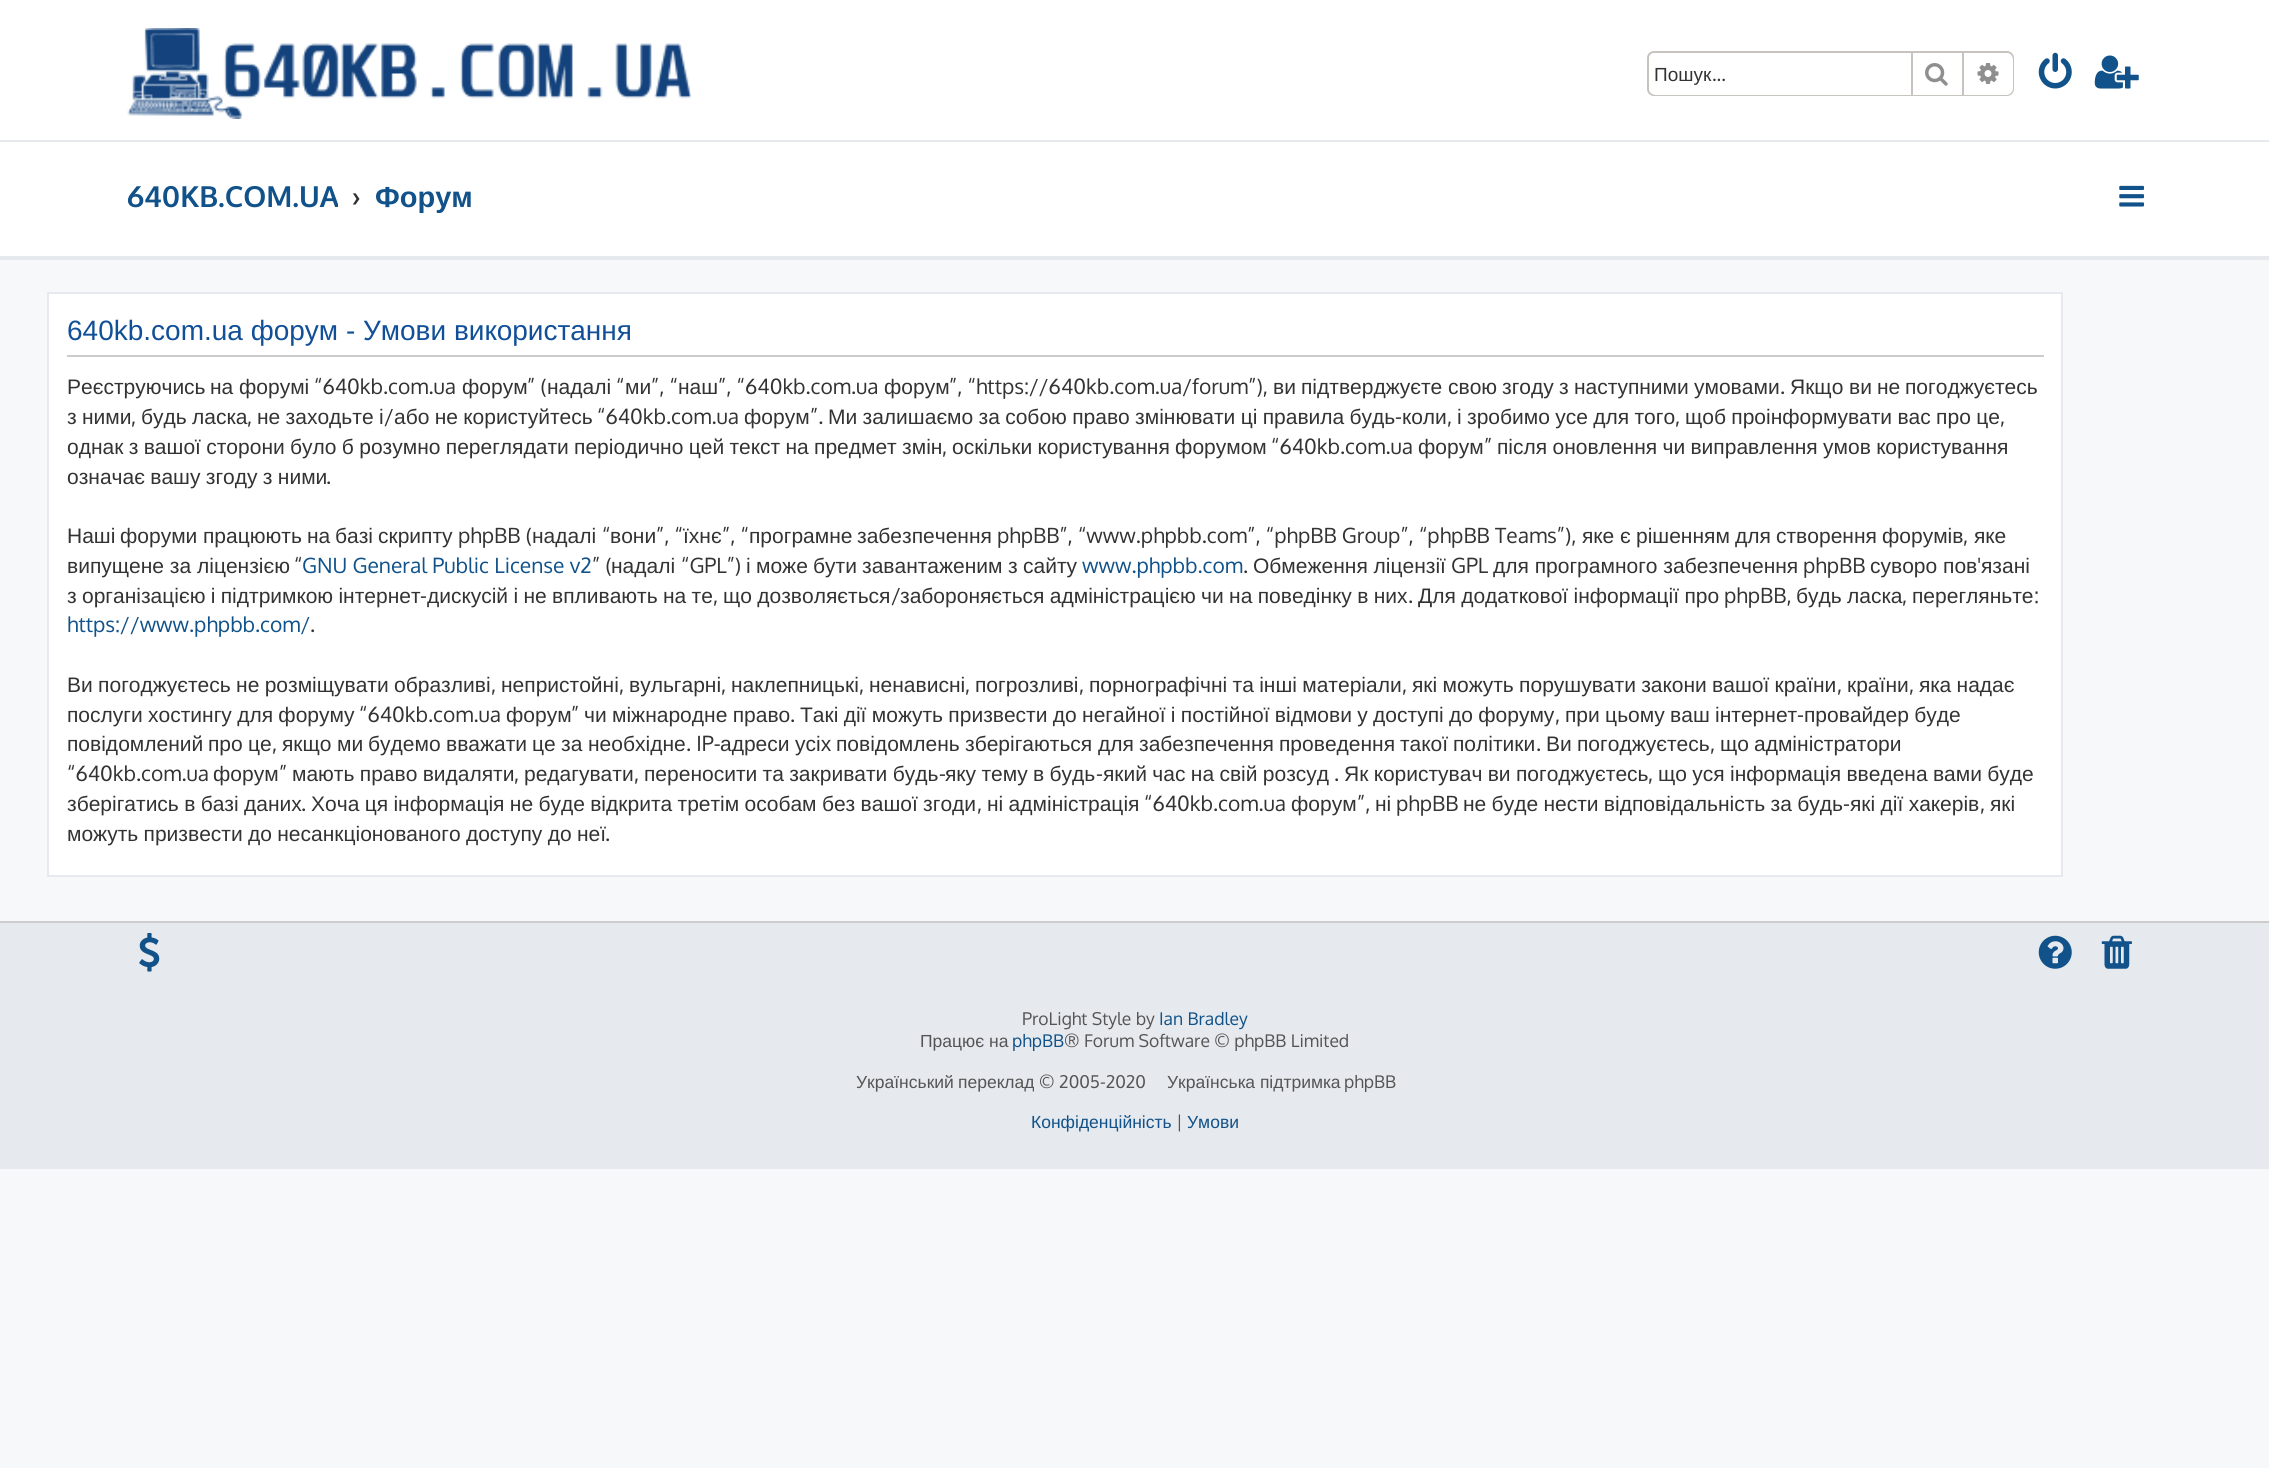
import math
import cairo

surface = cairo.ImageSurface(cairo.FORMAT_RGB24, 2269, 1468)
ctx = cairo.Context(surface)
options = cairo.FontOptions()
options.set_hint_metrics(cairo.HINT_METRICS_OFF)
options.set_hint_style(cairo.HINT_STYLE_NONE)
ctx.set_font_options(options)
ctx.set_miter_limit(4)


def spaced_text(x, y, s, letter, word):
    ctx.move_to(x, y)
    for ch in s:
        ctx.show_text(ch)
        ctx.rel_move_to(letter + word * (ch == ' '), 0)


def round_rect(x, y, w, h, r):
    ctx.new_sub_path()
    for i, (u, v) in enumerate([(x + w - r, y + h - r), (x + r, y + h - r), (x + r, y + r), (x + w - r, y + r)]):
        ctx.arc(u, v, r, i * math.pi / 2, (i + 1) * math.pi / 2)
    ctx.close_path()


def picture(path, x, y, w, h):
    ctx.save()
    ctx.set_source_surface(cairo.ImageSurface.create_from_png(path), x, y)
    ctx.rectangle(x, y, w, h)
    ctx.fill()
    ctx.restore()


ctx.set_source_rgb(0.961, 0.969, 0.98)
ctx.paint()
ctx.set_source_rgb(1, 1, 1)
ctx.rectangle(0, 0, 2269, 140)
ctx.fill()
ctx.set_source_rgb(0.902, 0.914, 0.929)
ctx.rectangle(0, 140, 2269, 2)
ctx.fill()
picture("img1.png", 127, 28, 564, 91)
round_rect(1648, 52, 365, 43, 6)
ctx.set_source_rgb(0.78, 0.765, 0.749)
ctx.stroke()
ctx.set_source_rgb(1, 1, 1)
ctx.new_path()
ctx.move_to(1656, 53)
ctx.line_to(1911, 53)
ctx.line_to(1911, 95)
ctx.line_to(1656, 95)
ctx.curve_to(1652, 95, 1649, 92, 1649, 88)
ctx.line_to(1649, 60)
ctx.curve_to(1649, 56, 1652, 53, 1656, 53)
ctx.close_path()
ctx.fill()
ctx.select_font_face("Liberation Sans")
ctx.set_font_size(19)
ctx.set_source_rgb(0.2, 0.2, 0.2)
ctx.move_to(1654, 81)
ctx.show_text("Пошук")
ctx.select_font_face("Oxygen")
ctx.move_to(1712, 81)
ctx.show_text("...")
ctx.set_source_rgb(1, 1, 1)
ctx.rectangle(1913, 94, 49, 1)
ctx.fill()
ctx.set_source_rgb(0.78, 0.765, 0.749)
ctx.rectangle(1962, 53, 2, 42)
ctx.fill()
ctx.rectangle(1911, 53, 2, 42)
ctx.fill()
picture("img2.png", 1925, 63, 23, 23)
ctx.set_source_rgb(1, 1, 1)
ctx.new_path()
ctx.move_to(1964, 53)
ctx.line_to(2006, 53)
ctx.curve_to(2010, 53, 2013, 56, 2013, 60)
ctx.line_to(2013, 88)
ctx.curve_to(2013, 92, 2010, 95, 2006, 95)
ctx.line_to(1964, 95)
ctx.close_path()
ctx.fill()
picture("img3.png", 1977, 63, 22, 21)
picture("img4.png", 2038, 52, 34, 37)
picture("img5.png", 2094, 55, 45, 34)
ctx.rectangle(0, 142, 2269, 114)
ctx.fill()
ctx.set_source_rgb(0.902, 0.914, 0.929)
ctx.rectangle(0, 256, 2269, 4)
ctx.fill()
ctx.save()
ctx.rectangle(128, 165, 210, 63)
ctx.clip()
ctx.select_font_face("Oxygen", cairo.FONT_SLANT_NORMAL, cairo.FONT_WEIGHT_BOLD)
ctx.set_font_size(29)
ctx.set_source_rgb(0.063, 0.322, 0.537)
ctx.move_to(127, 207)
ctx.show_text("640KB.COM.UA")
ctx.restore()
ctx.select_font_face("Oxygen", cairo.FONT_SLANT_NORMAL, cairo.FONT_WEIGHT_BOLD)
ctx.set_font_size(29)
ctx.set_source_rgb(0.2, 0.2, 0.2)
ctx.move_to(352, 207)
ctx.show_text("›")
ctx.select_font_face("Liberation Sans", cairo.FONT_SLANT_NORMAL, cairo.FONT_WEIGHT_BOLD)
ctx.set_source_rgb(0.063, 0.322, 0.537)
ctx.move_to(375, 207)
ctx.show_text("Форум")
picture("img6.png", 2119, 185, 25, 22)
ctx.set_source_rgb(1, 1, 1)
ctx.rectangle(48, 293, 2014, 583)
ctx.fill_preserve()
ctx.set_source_rgb(0.902, 0.914, 0.929)
ctx.stroke()
ctx.set_source_rgb(0.8, 0.8, 0.8)
ctx.rectangle(67, 355, 1977, 2)
ctx.fill()
ctx.select_font_face("Liberation Sans")
ctx.set_font_size(28)
ctx.set_source_rgb(0.067, 0.314, 0.596)
ctx.move_to(67, 340)
ctx.show_text("640kb.com.ua форум - Умови використання")
ctx.set_font_size(21)
ctx.set_source_rgb(0.2, 0.2, 0.2)
ctx.move_to(67, 394)
ctx.show_text("Реєструючись")
ctx.move_to(210, 394)
ctx.show_text("на")
ctx.move_to(239, 394)
ctx.show_text("форумі")
ctx.select_font_face("Oxygen")
ctx.move_to(314, 394)
ctx.show_text("“640kb.com.ua")
ctx.select_font_face("Liberation Sans")
ctx.move_to(462, 394)
ctx.show_text("форум")
ctx.select_font_face("Oxygen")
ctx.move_to(527, 394)
ctx.show_text("” (")
ctx.select_font_face("Liberation Sans")
ctx.move_to(547, 394)
ctx.show_text("надалі")
ctx.select_font_face("Oxygen")
ctx.move_to(616, 394)
ctx.show_text("“")
ctx.select_font_face("Liberation Sans")
ctx.move_to(625, 394)
ctx.show_text("ми")
ctx.select_font_face("Oxygen")
ctx.move_to(651, 394)
ctx.show_text("”, “")
ctx.select_font_face("Liberation Sans")
ctx.move_to(678, 394)
ctx.show_text("наш")
ctx.select_font_face("Oxygen")
ctx.move_to(718, 394)
ctx.show_text("”, “640kb.com.ua")
ctx.select_font_face("Liberation Sans")
ctx.move_to(884, 394)
ctx.show_text("форум")
ctx.select_font_face("Oxygen")
ctx.move_to(949, 394)
ctx.show_text("”, “https://640kb.com.ua/forum”),")
ctx.select_font_face("Liberation Sans")
ctx.move_to(1273, 394)
ctx.show_text("ви")
ctx.move_to(1301, 394)
ctx.show_text("підтверджуєте")
ctx.move_to(1448, 394)
ctx.show_text("свою")
ctx.move_to(1502, 394)
ctx.show_text("згоду")
ctx.move_to(1559, 394)
ctx.show_text("з")
ctx.move_to(1574, 394)
ctx.show_text("наступними")
ctx.move_to(1694, 394)
ctx.show_text("умовами")
ctx.select_font_face("Oxygen")
ctx.move_to(1780, 394)
ctx.show_text(".")
ctx.select_font_face("Liberation Sans")
ctx.move_to(1790, 394)
ctx.show_text("Якщо")
ctx.move_to(1849, 394)
ctx.show_text("ви")
ctx.move_to(1877, 394)
ctx.show_text("не")
ctx.move_to(1905, 394)
ctx.show_text("погоджуєтесь")
spaced_text(67, 424, "з ними", 0, -0.5)
spaced_text(141, 424, "будь ласка", 0, -0.5)
spaced_text(257, 424, "не заходьте і", 0, -0.5)
ctx.select_font_face("Oxygen")
ctx.move_to(384, 424)
ctx.show_text("/")
ctx.select_font_face("Liberation Sans")
spaced_text(394, 424, "або не користуйтесь", 0, -0.5)
ctx.select_font_face("Oxygen")
ctx.move_to(597, 424)
ctx.show_text("“640kb.com.ua")
ctx.select_font_face("Liberation Sans")
ctx.move_to(744, 424)
ctx.show_text("форум")
ctx.select_font_face("Oxygen")
ctx.move_to(810, 424)
ctx.show_text("”.")
ctx.select_font_face("Liberation Sans")
spaced_text(828, 424, "Ми залишаємо за собою право змінювати ці правила будь", 0, -0.5)
ctx.select_font_face("Oxygen")
ctx.move_to(1395, 424)
ctx.show_text("-")
ctx.select_font_face("Liberation Sans")
ctx.move_to(1402, 424)
ctx.show_text("коли")
spaced_text(1457, 424, "і зробимо усе для того", 0, -0.5)
spaced_text(1685, 424, "щоб проінформувати вас про це", 0, -0.5)
ctx.select_font_face("Oxygen")
ctx.move_to(131, 424)
ctx.show_text(",")
ctx.move_to(247, 424)
ctx.show_text(",")
ctx.move_to(1447, 424)
ctx.show_text(",")
ctx.move_to(1675, 424)
ctx.show_text(",")
ctx.move_to(2000, 424)
ctx.show_text(",")
ctx.select_font_face("Liberation Sans")
spaced_text(67, 454, "однак з вашої сторони було б розумно переглядати періодично цей текст на предмет змін", 0, -0.5)
ctx.select_font_face("Oxygen")
ctx.move_to(942, 454)
ctx.show_text(",")
ctx.select_font_face("Liberation Sans")
spaced_text(952, 454, "оскільки користування форумом", 0, -0.5)
ctx.select_font_face("Oxygen")
ctx.move_to(1271, 454)
ctx.show_text("“640kb.com.ua")
ctx.select_font_face("Liberation Sans")
ctx.move_to(1418, 454)
ctx.show_text("форум")
ctx.select_font_face("Oxygen")
ctx.move_to(1484, 454)
ctx.show_text("”")
ctx.select_font_face("Liberation Sans")
spaced_text(1497, 454, "після оновлення чи виправлення умов користування", 0, -0.5)
spaced_text(67, 484, "означає вашу згоду з ними", 0, -0.5)
ctx.select_font_face("Oxygen")
ctx.move_to(326, 484)
ctx.show_text(".")
ctx.select_font_face("Liberation Sans")
ctx.move_to(67, 543)
ctx.show_text("Наші")
ctx.move_to(120, 543)
ctx.show_text("форуми")
ctx.move_to(203, 543)
ctx.show_text("працюють")
ctx.move_to(307, 543)
ctx.show_text("на")
ctx.move_to(335, 543)
ctx.show_text("базі")
ctx.move_to(378, 543)
ctx.show_text("скрипту")
ctx.select_font_face("Oxygen")
ctx.move_to(458, 543)
ctx.show_text("phpBB (")
ctx.select_font_face("Liberation Sans")
ctx.move_to(532, 543)
ctx.show_text("надалі")
ctx.select_font_face("Oxygen")
ctx.move_to(602, 543)
ctx.show_text("“")
ctx.select_font_face("Liberation Sans")
ctx.move_to(610, 543)
ctx.show_text("вони")
ctx.select_font_face("Oxygen")
ctx.move_to(656, 543)
ctx.show_text("”, “")
ctx.select_font_face("Liberation Sans")
ctx.move_to(683, 543)
ctx.show_text("їхнє")
ctx.select_font_face("Oxygen")
ctx.move_to(722, 543)
ctx.show_text("”, “")
ctx.select_font_face("Liberation Sans")
ctx.move_to(749, 543)
ctx.show_text("програмне")
ctx.move_to(857, 543)
ctx.show_text("забезпечення")
ctx.select_font_face("Oxygen")
ctx.move_to(997, 543)
ctx.show_text("phpBB”, “www.phpbb.com”, “phpBB Group”, “phpBB Teams”),")
ctx.select_font_face("Liberation Sans")
ctx.move_to(1582, 543)
ctx.show_text("яке")
ctx.move_to(1620, 543)
ctx.show_text("є")
ctx.move_to(1636, 543)
ctx.show_text("рішенням")
ctx.move_to(1735, 543)
ctx.show_text("для")
ctx.move_to(1776, 543)
ctx.show_text("створення")
ctx.move_to(1882, 543)
ctx.show_text("форумів")
ctx.select_font_face("Oxygen")
ctx.move_to(1963, 543)
ctx.show_text(",")
ctx.select_font_face("Liberation Sans")
ctx.move_to(1974, 543)
ctx.show_text("яке")
ctx.move_to(67, 573)
ctx.show_text("випущене за ліцензією")
ctx.select_font_face("Oxygen")
ctx.move_to(294, 573)
ctx.show_text("“")
ctx.set_source_rgb(0.063, 0.322, 0.537)
ctx.move_to(302, 573)
ctx.show_text("GNU General Public License v2")
ctx.set_source_rgb(0.2, 0.2, 0.2)
ctx.move_to(592, 573)
ctx.show_text("” (")
ctx.select_font_face("Liberation Sans")
ctx.move_to(611, 573)
ctx.show_text("надалі")
ctx.select_font_face("Oxygen")
ctx.move_to(681, 573)
ctx.show_text("“GPL”)")
ctx.select_font_face("Liberation Sans")
ctx.move_to(746, 573)
ctx.show_text("і")
ctx.move_to(756, 573)
ctx.show_text("може")
ctx.move_to(813, 573)
ctx.show_text("бути")
ctx.move_to(862, 573)
ctx.show_text("завантаженим")
ctx.move_to(1008, 573)
ctx.show_text("з")
ctx.move_to(1023, 573)
ctx.show_text("сайту")
ctx.select_font_face("Oxygen")
ctx.set_source_rgb(0.063, 0.322, 0.537)
ctx.move_to(1082, 573)
ctx.show_text("www.phpbb.com")
ctx.set_source_rgb(0.2, 0.2, 0.2)
ctx.move_to(1243, 573)
ctx.show_text(".")
ctx.select_font_face("Liberation Sans")
ctx.move_to(1253, 573)
ctx.show_text("Обмеження ліцензії")
ctx.select_font_face("Oxygen")
ctx.move_to(1451, 573)
ctx.show_text("GPL")
ctx.select_font_face("Liberation Sans")
ctx.move_to(1493, 573)
ctx.show_text("для програмного забезпечення")
ctx.select_font_face("Oxygen")
ctx.move_to(1803, 573)
ctx.show_text("phpBB")
ctx.select_font_face("Liberation Sans")
ctx.move_to(1870, 573)
ctx.show_text("суворо пов")
ctx.select_font_face("Oxygen")
ctx.move_to(1977, 573)
ctx.show_text("'")
ctx.select_font_face("Liberation Sans")
ctx.move_to(1981, 573)
ctx.show_text("язані")
spaced_text(67, 603, "з організацією і підтримкою інтернет", 0, -0.5)
ctx.select_font_face("Oxygen")
ctx.move_to(420, 603)
ctx.show_text("-")
ctx.select_font_face("Liberation Sans")
spaced_text(427, 603, "дискусій і не впливають на те", 0, -0.5)
spaced_text(723, 603, "що дозволяється", 0, -0.5)
ctx.select_font_face("Oxygen")
ctx.move_to(891, 603)
ctx.show_text("/")
ctx.select_font_face("Liberation Sans")
spaced_text(900, 603, "забороняється адміністрацією чи на поведінку в них", 0, -0.5)
spaced_text(1418, 603, "Для додаткової інформації про", 0, -0.5)
ctx.select_font_face("Oxygen")
ctx.move_to(1724, 603)
ctx.show_text("phpBB,")
ctx.select_font_face("Liberation Sans")
spaced_text(1796, 603, "будь ласка", 0, -0.5)
ctx.move_to(1912, 603)
ctx.show_text("перегляньте")
ctx.select_font_face("Oxygen")
ctx.move_to(2034, 603)
ctx.show_text(":")
ctx.move_to(713, 603)
ctx.show_text(",")
ctx.move_to(1408, 603)
ctx.show_text(".")
ctx.move_to(1902, 603)
ctx.show_text(",")
ctx.set_source_rgb(0.063, 0.322, 0.537)
ctx.move_to(67, 632)
ctx.show_text("https://www.phpbb.com/")
ctx.set_source_rgb(0.2, 0.2, 0.2)
ctx.move_to(310, 632)
ctx.show_text(".")
ctx.select_font_face("Liberation Sans")
spaced_text(67, 692, "Ви погоджуєтесь не розміщувати образливі", 0, -0.5)
ctx.select_font_face("Oxygen")
ctx.move_to(491, 692)
ctx.show_text(",")
ctx.select_font_face("Liberation Sans")
ctx.move_to(501, 692)
ctx.show_text("непристойні")
ctx.select_font_face("Oxygen")
ctx.move_to(619, 692)
ctx.show_text(",")
ctx.select_font_face("Liberation Sans")
ctx.move_to(629, 692)
ctx.show_text("вульгарні")
ctx.select_font_face("Oxygen")
ctx.move_to(721, 692)
ctx.show_text(",")
ctx.select_font_face("Liberation Sans")
ctx.move_to(731, 692)
ctx.show_text("наклепницькі")
ctx.select_font_face("Oxygen")
ctx.move_to(859, 692)
ctx.show_text(",")
ctx.select_font_face("Liberation Sans")
ctx.move_to(869, 692)
ctx.show_text("ненависні")
ctx.select_font_face("Oxygen")
ctx.move_to(965, 692)
ctx.show_text(",")
ctx.select_font_face("Liberation Sans")
ctx.move_to(975, 692)
ctx.show_text("погрозливі")
ctx.select_font_face("Oxygen")
ctx.move_to(1079, 692)
ctx.show_text(",")
ctx.select_font_face("Liberation Sans")
spaced_text(1089, 692, "порнографічні та інші матеріали", 0, -0.5)
ctx.select_font_face("Oxygen")
ctx.move_to(1402, 692)
ctx.show_text(",")
ctx.select_font_face("Liberation Sans")
spaced_text(1412, 692, "які можуть порушувати закони вашої країни", 0, -0.5)
ctx.select_font_face("Oxygen")
ctx.move_to(1837, 692)
ctx.show_text(",")
ctx.select_font_face("Liberation Sans")
ctx.move_to(1847, 692)
ctx.show_text("країни")
ctx.select_font_face("Oxygen")
ctx.move_to(1909, 692)
ctx.show_text(",")
ctx.select_font_face("Liberation Sans")
spaced_text(1919, 692, "яка надає", 0, -0.5)
spaced_text(67, 722, "послуги хостингу для форуму", 0, -0.5)
ctx.select_font_face("Oxygen")
ctx.move_to(359, 722)
ctx.show_text("“640kb.com.ua")
ctx.select_font_face("Liberation Sans")
ctx.move_to(506, 722)
ctx.show_text("форум")
ctx.select_font_face("Oxygen")
ctx.move_to(571, 722)
ctx.show_text("”")
ctx.select_font_face("Liberation Sans")
spaced_text(584, 722, "чи міжнародне право", 0, -0.5)
spaced_text(800, 722, "Такі дії можуть призвести до негайної і постійної відмови у доступі до форуму", 0, -0.5)
spaced_text(1565, 722, "при цьому ваш інтернет", 0, -0.5)
ctx.select_font_face("Oxygen")
ctx.move_to(1797, 722)
ctx.show_text("-")
ctx.select_font_face("Liberation Sans")
spaced_text(1804, 722, "провайдер буде", 0, -0.5)
ctx.select_font_face("Oxygen")
ctx.move_to(790, 722)
ctx.show_text(".")
ctx.move_to(1555, 722)
ctx.show_text(",")
ctx.select_font_face("Liberation Sans")
ctx.move_to(67, 751)
ctx.show_text("повідомлений")
ctx.move_to(208, 751)
ctx.show_text("про")
ctx.move_to(248, 751)
ctx.show_text("це")
ctx.select_font_face("Oxygen")
ctx.move_to(272, 751)
ctx.show_text(",")
ctx.select_font_face("Liberation Sans")
ctx.move_to(282, 751)
ctx.show_text("якщо")
ctx.move_to(337, 751)
ctx.show_text("ми")
ctx.move_to(368, 751)
ctx.show_text("будемо")
ctx.move_to(446, 751)
ctx.show_text("вважати")
ctx.move_to(532, 751)
ctx.show_text("це")
ctx.move_to(561, 751)
ctx.show_text("за")
ctx.move_to(588, 751)
ctx.show_text("необхідне")
ctx.select_font_face("Oxygen")
ctx.move_to(686, 751)
ctx.show_text(". IP-")
ctx.select_font_face("Liberation Sans")
ctx.move_to(720, 751)
ctx.show_text("адреси")
ctx.move_to(795, 751)
ctx.show_text("усіх")
ctx.move_to(836, 751)
ctx.show_text("повідомлень")
ctx.move_to(965, 751)
ctx.show_text("зберігаються")
ctx.move_to(1098, 751)
ctx.show_text("для")
ctx.move_to(1139, 751)
ctx.show_text("забезпечення")
ctx.move_to(1279, 751)
ctx.show_text("проведення")
ctx.move_to(1400, 751)
ctx.show_text("такої")
ctx.move_to(1453, 751)
ctx.show_text("політики")
ctx.select_font_face("Oxygen")
ctx.move_to(1536, 751)
ctx.show_text(".")
ctx.select_font_face("Liberation Sans")
ctx.move_to(1546, 751)
ctx.show_text("Ви")
ctx.move_to(1577, 751)
ctx.show_text("погоджуєтесь")
ctx.select_font_face("Oxygen")
ctx.move_to(1710, 751)
ctx.show_text(",")
ctx.select_font_face("Liberation Sans")
ctx.move_to(1720, 751)
ctx.show_text("що")
ctx.move_to(1754, 751)
ctx.show_text("адміністратори")
ctx.select_font_face("Oxygen")
ctx.move_to(67, 781)
ctx.show_text("“640kb.com.ua")
ctx.select_font_face("Liberation Sans")
ctx.move_to(213, 781)
ctx.show_text("форум")
ctx.select_font_face("Oxygen")
ctx.move_to(279, 781)
ctx.show_text("”")
ctx.select_font_face("Liberation Sans")
spaced_text(292, 781, "мають право видаляти", 0, -0.5)
ctx.move_to(524, 781)
ctx.show_text("редагувати")
spaced_text(644, 781, "переносити та закривати будь", 0, -0.5)
ctx.select_font_face("Oxygen")
ctx.move_to(939, 781)
ctx.show_text("-")
ctx.select_font_face("Liberation Sans")
spaced_text(945, 781, "яку тему в будь", 0, -0.5)
ctx.select_font_face("Oxygen")
ctx.move_to(1096, 781)
ctx.show_text("-")
ctx.select_font_face("Liberation Sans")
spaced_text(1103, 781, "який час на свій розсуд", 0, -0.5)
spaced_text(1344, 781, "Як користувач ви погоджуєтесь", 0, -0.5)
spaced_text(1658, 781, "що уся інформація введена вами буде", 0, -0.5)
ctx.select_font_face("Oxygen")
ctx.move_to(514, 781)
ctx.show_text(",")
ctx.move_to(634, 781)
ctx.show_text(",")
ctx.move_to(1334, 781)
ctx.show_text(".")
ctx.move_to(1648, 781)
ctx.show_text(",")
ctx.select_font_face("Liberation Sans")
spaced_text(67, 811, "зберігатись в базі даних", 0, -0.5)
spaced_text(311, 811, "Хоча ця інформація не буде відкрита третім особам без вашої згоди", 0, -0.5)
spaced_text(987, 811, "ні адміністрація", 0, -0.5)
ctx.select_font_face("Oxygen")
ctx.move_to(1144, 811)
ctx.show_text("“640kb.com.ua")
ctx.select_font_face("Liberation Sans")
ctx.move_to(1291, 811)
ctx.show_text("форум")
ctx.select_font_face("Oxygen")
ctx.move_to(1357, 811)
ctx.show_text("”,")
ctx.select_font_face("Liberation Sans")
ctx.move_to(1375, 811)
ctx.show_text("ні")
ctx.select_font_face("Oxygen")
ctx.move_to(1396, 811)
ctx.show_text("phpBB")
ctx.select_font_face("Liberation Sans")
spaced_text(1463, 811, "не буде нести відповідальність за будь", 0, -0.5)
ctx.select_font_face("Oxygen")
ctx.move_to(1843, 811)
ctx.show_text("-")
ctx.select_font_face("Liberation Sans")
spaced_text(1850, 811, "які дії хакерів", 0, -0.5)
ctx.move_to(1990, 811)
ctx.show_text("які")
ctx.select_font_face("Oxygen")
ctx.move_to(301, 811)
ctx.show_text(".")
ctx.move_to(977, 811)
ctx.show_text(",")
ctx.move_to(1980, 811)
ctx.show_text(",")
ctx.select_font_face("Liberation Sans")
spaced_text(67, 841, "можуть призвести до несанкціонованого доступу до неї", 0, -0.5)
ctx.select_font_face("Oxygen")
ctx.move_to(605, 841)
ctx.show_text(".")
ctx.set_source_rgb(0.902, 0.914, 0.929)
ctx.rectangle(0, 923, 2269, 246)
ctx.fill()
ctx.set_source_rgb(0.8, 0.8, 0.8)
ctx.rectangle(0, 921, 2269, 2)
ctx.fill()
picture("img7.png", 139, 933, 21, 39)
picture("img8.png", 2038, 935, 34, 34)
picture("img9.png", 2101, 935, 31, 34)
ctx.set_font_size(17.5)
ctx.set_source_rgb(0.333, 0.333, 0.333)
ctx.move_to(1022, 1025)
ctx.show_text("ProLight Style by")
ctx.set_source_rgb(0.063, 0.322, 0.537)
ctx.move_to(1159, 1025)
ctx.show_text("Ian Bradley")
ctx.select_font_face("Liberation Sans")
ctx.set_source_rgb(0.333, 0.333, 0.333)
ctx.move_to(920, 1047)
ctx.show_text("Працює на")
ctx.select_font_face("Oxygen")
ctx.set_source_rgb(0.063, 0.322, 0.537)
ctx.move_to(1012, 1047)
ctx.show_text("phpBB")
ctx.set_source_rgb(0.333, 0.333, 0.333)
ctx.move_to(1064, 1047)
ctx.show_text("® Forum Software © phpBB Limited")
ctx.select_font_face("Liberation Sans")
ctx.move_to(856, 1088)
ctx.show_text("Український")
ctx.move_to(958, 1088)
ctx.show_text("переклад")
ctx.select_font_face("Oxygen")
ctx.move_to(1039, 1088)
ctx.show_text("© 2005-2020")
ctx.select_font_face("Liberation Sans")
ctx.move_to(1167, 1088)
ctx.show_text("Українська підтримка")
ctx.select_font_face("Oxygen")
ctx.move_to(1344, 1088)
ctx.show_text("phpBB")
ctx.select_font_face("Liberation Sans")
ctx.set_source_rgb(0.063, 0.322, 0.537)
ctx.move_to(1031, 1128)
ctx.show_text("Конфіденційність")
ctx.select_font_face("Oxygen")
ctx.set_source_rgb(0.333, 0.333, 0.333)
ctx.move_to(1176, 1128)
ctx.show_text("|")
ctx.select_font_face("Liberation Sans")
ctx.set_source_rgb(0.063, 0.322, 0.537)
ctx.move_to(1187, 1128)
ctx.show_text("Умови")
surface.write_to_png("page.png")
